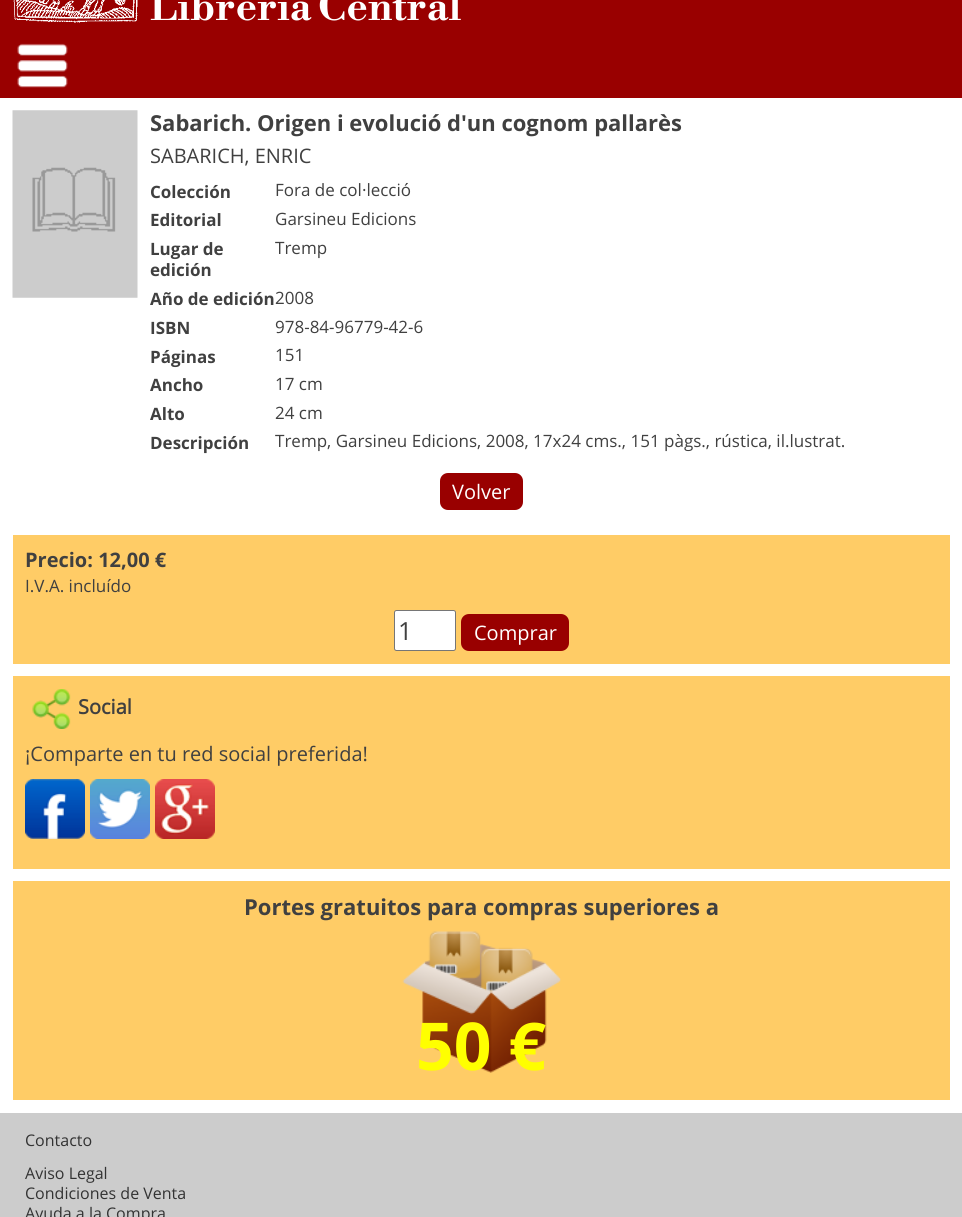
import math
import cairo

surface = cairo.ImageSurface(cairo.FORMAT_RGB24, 962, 1217)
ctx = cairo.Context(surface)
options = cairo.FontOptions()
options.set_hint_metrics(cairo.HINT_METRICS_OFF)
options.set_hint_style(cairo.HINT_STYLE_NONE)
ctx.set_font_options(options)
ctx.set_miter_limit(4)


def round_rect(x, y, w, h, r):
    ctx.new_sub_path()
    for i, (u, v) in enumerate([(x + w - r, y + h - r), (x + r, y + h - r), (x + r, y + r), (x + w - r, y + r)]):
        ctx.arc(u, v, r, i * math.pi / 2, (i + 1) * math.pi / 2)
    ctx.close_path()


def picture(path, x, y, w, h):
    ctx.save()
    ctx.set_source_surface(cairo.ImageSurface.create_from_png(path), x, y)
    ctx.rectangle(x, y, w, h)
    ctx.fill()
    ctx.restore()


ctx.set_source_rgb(1, 1, 1)
ctx.paint()
ctx.set_source_rgb(0.6, 0, 0)
ctx.rectangle(0, 0, 962, 98)
ctx.fill()
picture("img1.png", 17, 43, 51, 45)
picture("img2.png", 13, 0, 125, 23)
ctx.select_font_face("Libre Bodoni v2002", cairo.FONT_SLANT_NORMAL, cairo.FONT_WEIGHT_BOLD)
ctx.set_font_size(40)
ctx.set_source_rgb(1, 1, 1)
ctx.move_to(150, 20)
ctx.show_text("Librería Central")
picture("img3.png", 12, 110, 126, 188)
ctx.select_font_face("Open Sans", cairo.FONT_SLANT_NORMAL, cairo.FONT_WEIGHT_BOLD)
ctx.set_font_size(22)
ctx.set_source_rgb(0.251, 0.251, 0.251)
ctx.move_to(150, 131)
ctx.show_text("Sabarich. Origen i evolució d'un cognom pallarès")
ctx.select_font_face("Open Sans")
ctx.set_font_size(20)
ctx.move_to(150, 163)
ctx.show_text("SABARICH, ENRIC")
ctx.select_font_face("Open Sans", cairo.FONT_SLANT_NORMAL, cairo.FONT_WEIGHT_BOLD)
ctx.set_font_size(17)
ctx.move_to(150, 198)
ctx.show_text("Colección")
ctx.select_font_face("Open Sans")
ctx.move_to(275, 196)
ctx.show_text("Fora de col·lecció")
ctx.select_font_face("Open Sans", cairo.FONT_SLANT_NORMAL, cairo.FONT_WEIGHT_BOLD)
ctx.move_to(150, 226)
ctx.show_text("Editorial")
ctx.select_font_face("Open Sans")
ctx.move_to(275, 225)
ctx.show_text("Garsineu Edicions")
ctx.select_font_face("Open Sans", cairo.FONT_SLANT_NORMAL, cairo.FONT_WEIGHT_BOLD)
ctx.move_to(150, 255)
ctx.show_text("Lugar de")
ctx.move_to(150, 276)
ctx.show_text("edición")
ctx.select_font_face("Open Sans")
ctx.move_to(275, 254)
ctx.show_text("Tremp")
ctx.select_font_face("Open Sans", cairo.FONT_SLANT_NORMAL, cairo.FONT_WEIGHT_BOLD)
ctx.move_to(150, 305)
ctx.show_text("Año de edición")
ctx.select_font_face("Open Sans")
ctx.move_to(275, 304)
ctx.show_text("2008")
ctx.select_font_face("Open Sans", cairo.FONT_SLANT_NORMAL, cairo.FONT_WEIGHT_BOLD)
ctx.move_to(150, 334)
ctx.show_text("ISBN")
ctx.select_font_face("Open Sans")
ctx.move_to(275, 333)
ctx.show_text("978-84-96779-42-6")
ctx.select_font_face("Open Sans", cairo.FONT_SLANT_NORMAL, cairo.FONT_WEIGHT_BOLD)
ctx.move_to(150, 363)
ctx.show_text("Páginas")
ctx.select_font_face("Open Sans")
ctx.move_to(275, 361)
ctx.show_text("151")
ctx.select_font_face("Open Sans", cairo.FONT_SLANT_NORMAL, cairo.FONT_WEIGHT_BOLD)
ctx.move_to(150, 391)
ctx.show_text("Ancho")
ctx.select_font_face("Open Sans")
ctx.move_to(275, 390)
ctx.show_text("17 cm")
ctx.select_font_face("Open Sans", cairo.FONT_SLANT_NORMAL, cairo.FONT_WEIGHT_BOLD)
ctx.move_to(150, 420)
ctx.show_text("Alto")
ctx.select_font_face("Open Sans")
ctx.move_to(275, 419)
ctx.show_text("24 cm")
ctx.select_font_face("Open Sans", cairo.FONT_SLANT_NORMAL, cairo.FONT_WEIGHT_BOLD)
ctx.move_to(150, 449)
ctx.show_text("Descripción")
ctx.select_font_face("Open Sans")
ctx.move_to(275, 447)
ctx.show_text("Tremp, Garsineu Edicions, 2008, 17x24 cms., 151 pàgs., rústica, il.lustrat.")
ctx.set_source_rgb(0.6, 0, 0)
round_rect(440, 473, 83, 37, 8)
ctx.fill()
ctx.set_font_size(20)
ctx.set_source_rgb(1, 1, 1)
ctx.move_to(452, 499)
ctx.show_text("Volver")
ctx.set_source_rgb(1, 0.8, 0.4)
ctx.rectangle(13, 535, 937, 129)
ctx.fill()
ctx.select_font_face("Open Sans", cairo.FONT_SLANT_NORMAL, cairo.FONT_WEIGHT_BOLD)
ctx.set_source_rgb(0.251, 0.251, 0.251)
ctx.move_to(25, 567)
ctx.show_text("Precio: 12,00 €")
ctx.select_font_face("Open Sans")
ctx.set_font_size(17)
ctx.move_to(25, 592)
ctx.show_text("I.V.A. incluído")
ctx.set_source_rgb(1, 1, 1)
round_rect(394.5, 610.5, 61, 40, 2)
ctx.fill_preserve()
ctx.set_source_rgb(0.463, 0.463, 0.463)
ctx.set_line_width(1)
ctx.stroke()
ctx.set_font_size(25)
ctx.set_source_rgb(0.251, 0.251, 0.251)
ctx.move_to(398, 640)
ctx.show_text("1")
ctx.set_source_rgb(0.6, 0, 0)
round_rect(461, 614, 108, 37, 8)
ctx.fill()
ctx.set_font_size(20)
ctx.set_source_rgb(1, 1, 1)
ctx.move_to(474, 640)
ctx.show_text("Comprar")
ctx.set_source_rgb(1, 0.8, 0.4)
ctx.rectangle(13, 676, 937, 193)
ctx.fill()
picture("img4.png", 32, 689, 39, 40)
ctx.select_font_face("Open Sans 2", cairo.FONT_SLANT_NORMAL, cairo.FONT_WEIGHT_BOLD)
ctx.set_source_rgb(0.251, 0.251, 0.251)
ctx.move_to(78, 714)
ctx.show_text("Social")
ctx.select_font_face("Open Sans")
ctx.move_to(25, 761)
ctx.show_text("¡Comparte en tu red social preferida!")
picture("img5.png", 25, 779, 60, 60)
picture("img6.png", 90, 779, 60, 60)
picture("img7.png", 155, 779, 60, 60)
ctx.set_source_rgb(1, 0.8, 0.4)
ctx.rectangle(13, 881, 937, 219)
ctx.fill()
ctx.select_font_face("Open Sans", cairo.FONT_SLANT_NORMAL, cairo.FONT_WEIGHT_BOLD)
ctx.set_font_size(22)
ctx.set_source_rgb(0.251, 0.251, 0.251)
ctx.move_to(244, 915)
ctx.show_text("Portes gratuitos para compras superiores a")
picture("img8.png", 402, 931, 159, 142)
ctx.set_font_size(66)
ctx.set_source_rgb(1, 1, 0)
ctx.move_to(416, 1070)
ctx.show_text("50 €")
ctx.set_source_rgb(0.8, 0.8, 0.8)
ctx.rectangle(0, 1113, 962, 104)
ctx.fill()
ctx.select_font_face("Open Sans")
ctx.set_font_size(16)
ctx.set_source_rgb(0.2, 0.2, 0.2)
ctx.move_to(25, 1146)
ctx.show_text("Contacto")
ctx.move_to(25, 1179)
ctx.show_text("Aviso Legal")
ctx.move_to(25, 1199)
ctx.show_text("Condiciones de Venta")
ctx.move_to(25, 1219)
ctx.show_text("Ayuda a la Compra")
surface.write_to_png("page.png")
